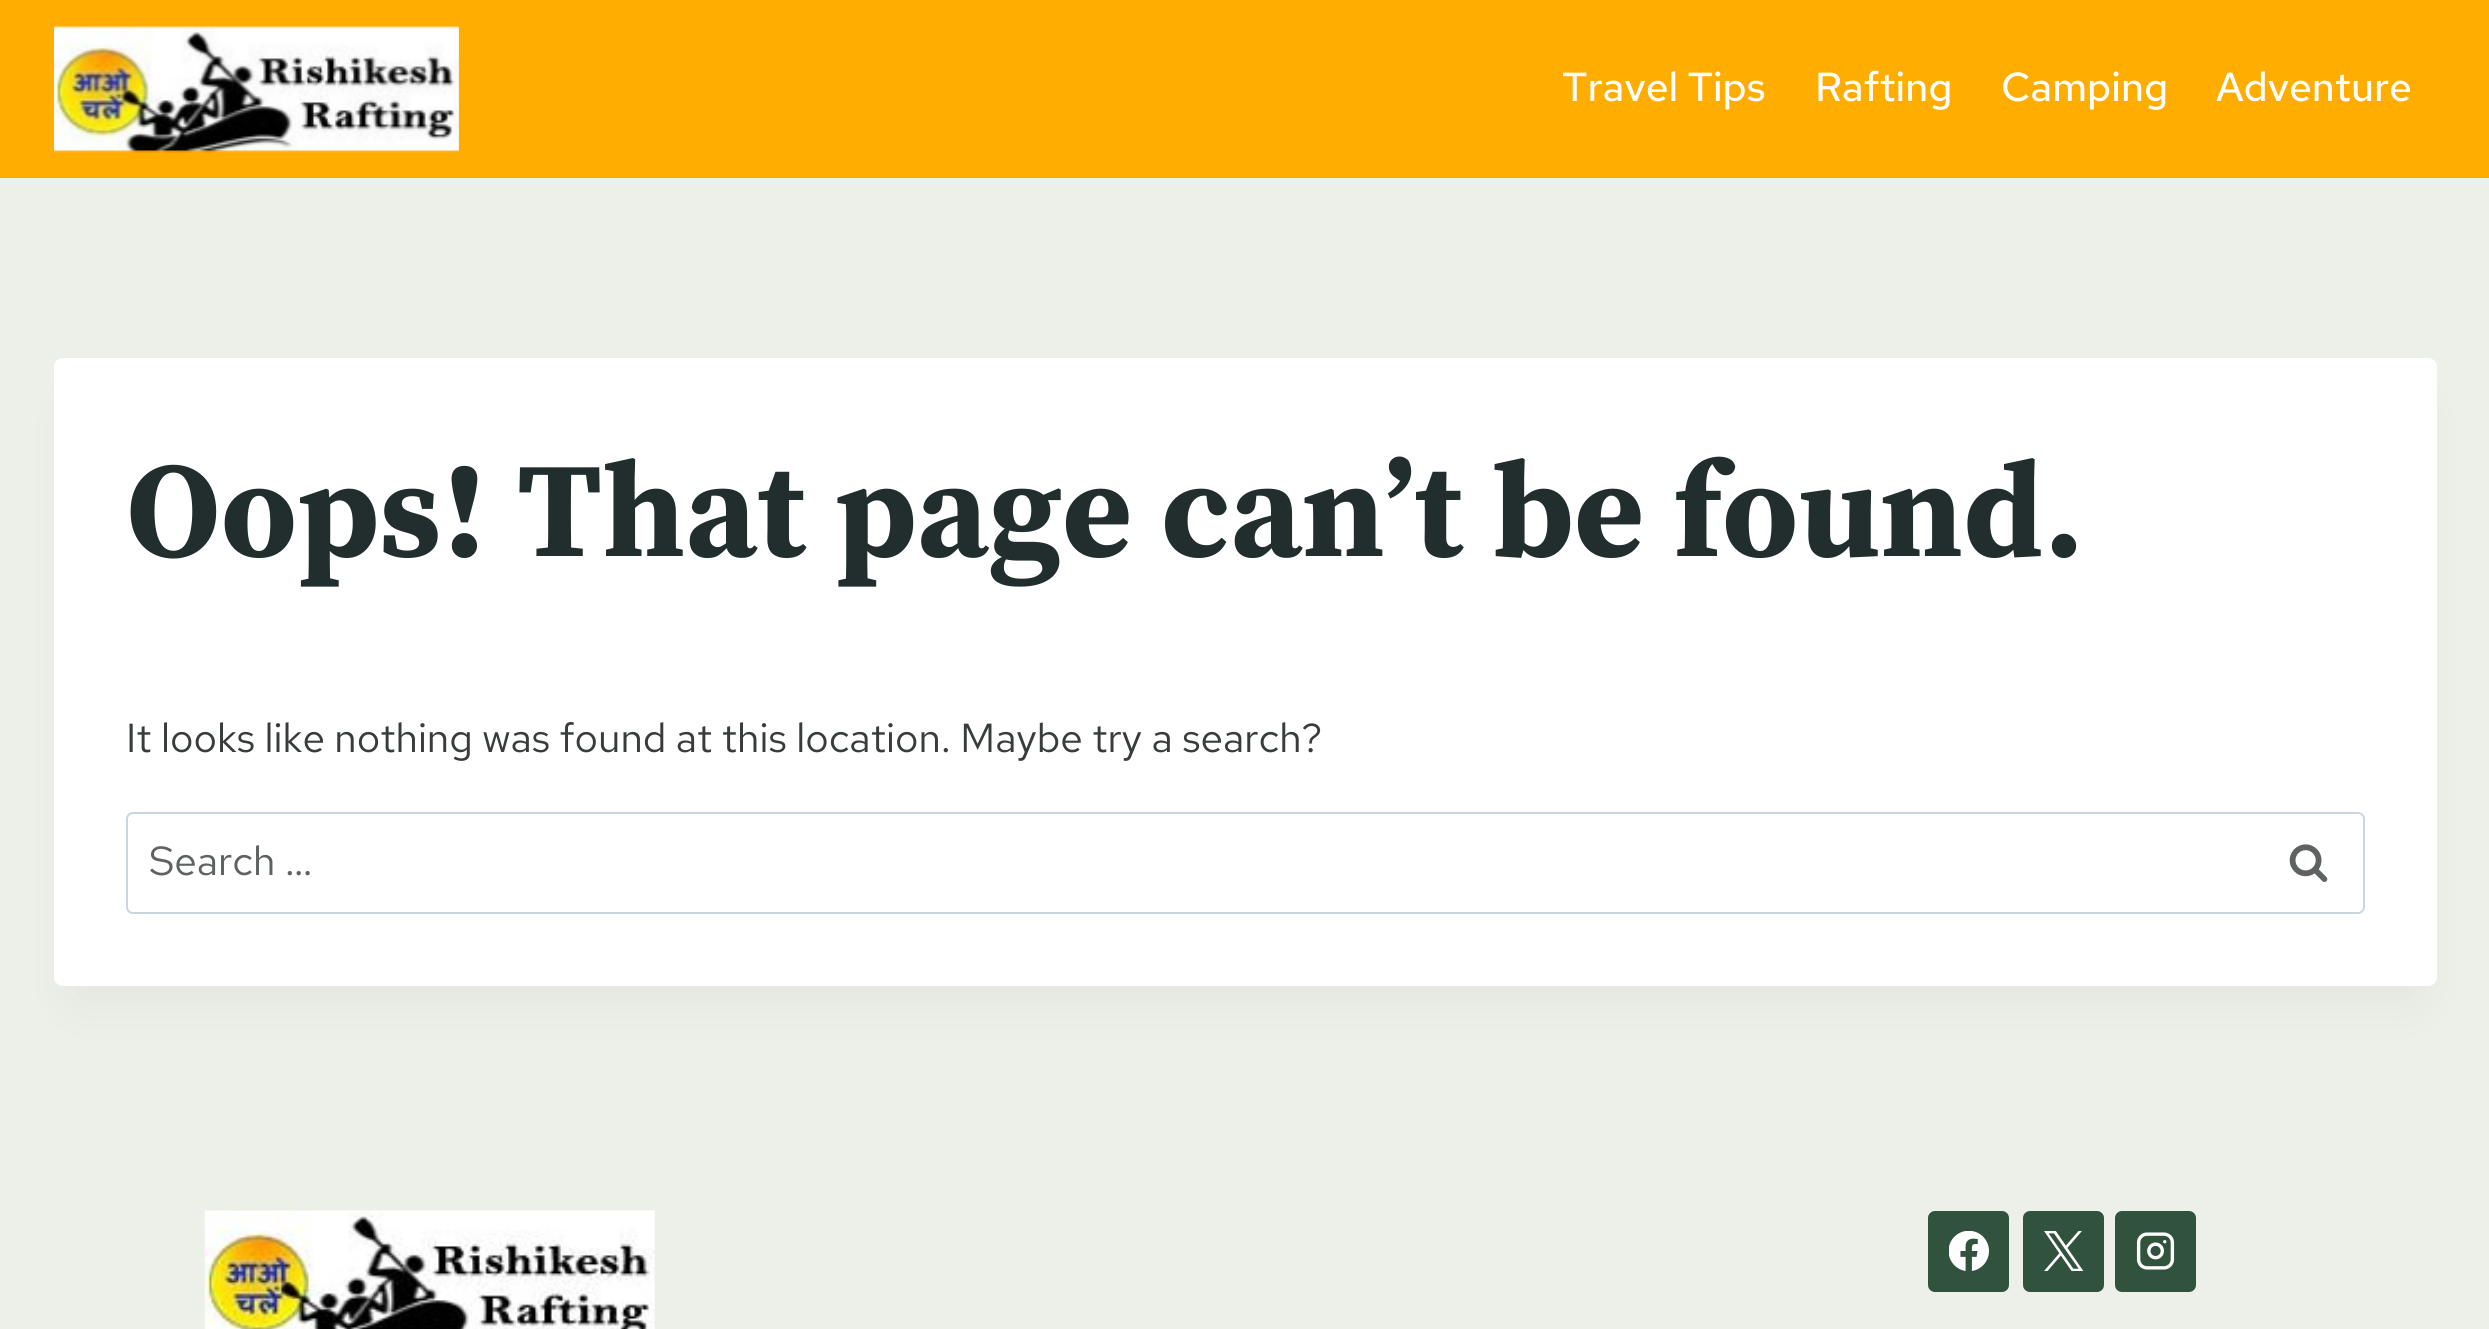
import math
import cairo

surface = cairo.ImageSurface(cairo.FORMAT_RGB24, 2489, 1329)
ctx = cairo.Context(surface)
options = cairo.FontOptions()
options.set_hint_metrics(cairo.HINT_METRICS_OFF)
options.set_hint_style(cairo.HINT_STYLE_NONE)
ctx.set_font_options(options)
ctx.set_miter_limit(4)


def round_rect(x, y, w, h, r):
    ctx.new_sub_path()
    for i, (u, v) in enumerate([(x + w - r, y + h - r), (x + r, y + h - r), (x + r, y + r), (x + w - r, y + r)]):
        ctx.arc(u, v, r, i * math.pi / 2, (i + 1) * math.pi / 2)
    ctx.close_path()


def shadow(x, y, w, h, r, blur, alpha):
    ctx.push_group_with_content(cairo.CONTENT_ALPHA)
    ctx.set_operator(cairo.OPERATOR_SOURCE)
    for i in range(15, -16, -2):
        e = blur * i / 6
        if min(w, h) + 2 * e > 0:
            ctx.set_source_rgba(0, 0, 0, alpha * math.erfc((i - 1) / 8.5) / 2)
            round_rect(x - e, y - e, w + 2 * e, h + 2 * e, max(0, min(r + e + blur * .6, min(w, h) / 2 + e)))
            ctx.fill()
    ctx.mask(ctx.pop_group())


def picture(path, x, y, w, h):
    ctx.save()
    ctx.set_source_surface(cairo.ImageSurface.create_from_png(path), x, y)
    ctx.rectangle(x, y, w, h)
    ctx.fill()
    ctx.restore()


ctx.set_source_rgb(0.929, 0.941, 0.91)
ctx.paint()
ctx.set_source_rgb(1, 0.678, 0)
ctx.rectangle(0, 0, 2489, 178)
ctx.fill()
picture("img1.png", 54, 26, 405, 127)
ctx.select_font_face("Red Hat Text Medium")
ctx.set_font_size(40.5)
ctx.set_source_rgb(1, 1, 1)
ctx.move_to(1562, 101)
ctx.show_text("Travel Tips")
ctx.move_to(1815, 101)
ctx.show_text("Rafting")
ctx.move_to(2001, 101)
ctx.show_text("Camping")
ctx.move_to(2216, 101)
ctx.show_text("Adventure")
ctx.set_source_rgb(0, 0, 0)
shadow(77, 414, 2337, 583, 0, 28, 0.05)
ctx.set_source_rgb(1, 1, 1)
round_rect(54, 358, 2383, 628, 9)
ctx.fill()
ctx.select_font_face("Source Serif Pro", cairo.FONT_SLANT_NORMAL, cairo.FONT_WEIGHT_BOLD)
ctx.set_font_size(135)
ctx.set_source_rgb(0.129, 0.18, 0.176)
ctx.move_to(126, 556)
ctx.show_text("Oops! That page can’t be found.")
ctx.select_font_face("Red Hat Text")
ctx.set_font_size(40.5)
ctx.set_source_rgb(0.224, 0.239, 0.227)
ctx.move_to(126, 752)
ctx.show_text("It looks like nothing was found at this location. Maybe try a search?")
round_rect(127, 813, 2237, 100, 6)
ctx.set_source_rgb(0.796, 0.835, 0.878)
ctx.stroke()
ctx.set_source_rgb(0.373, 0.388, 0.376)
ctx.move_to(149, 875)
ctx.show_text("Search …")
picture("img2.png", 2289, 844, 39, 38)
picture("img3.png", 204, 1210, 451, 119)
ctx.set_source_rgb(0.192, 0.325, 0.239)
round_rect(1928, 1211, 81, 81, 7)
ctx.fill()
picture("img4.png", 1949, 1231, 40, 40)
round_rect(2023, 1211, 81, 81, 7)
ctx.fill()
picture("img5.png", 2044, 1231, 40, 40)
round_rect(2115, 1211, 81, 81, 7)
ctx.fill()
picture("img6.png", 2136, 1232, 39, 38)
surface.write_to_png("page.png")
